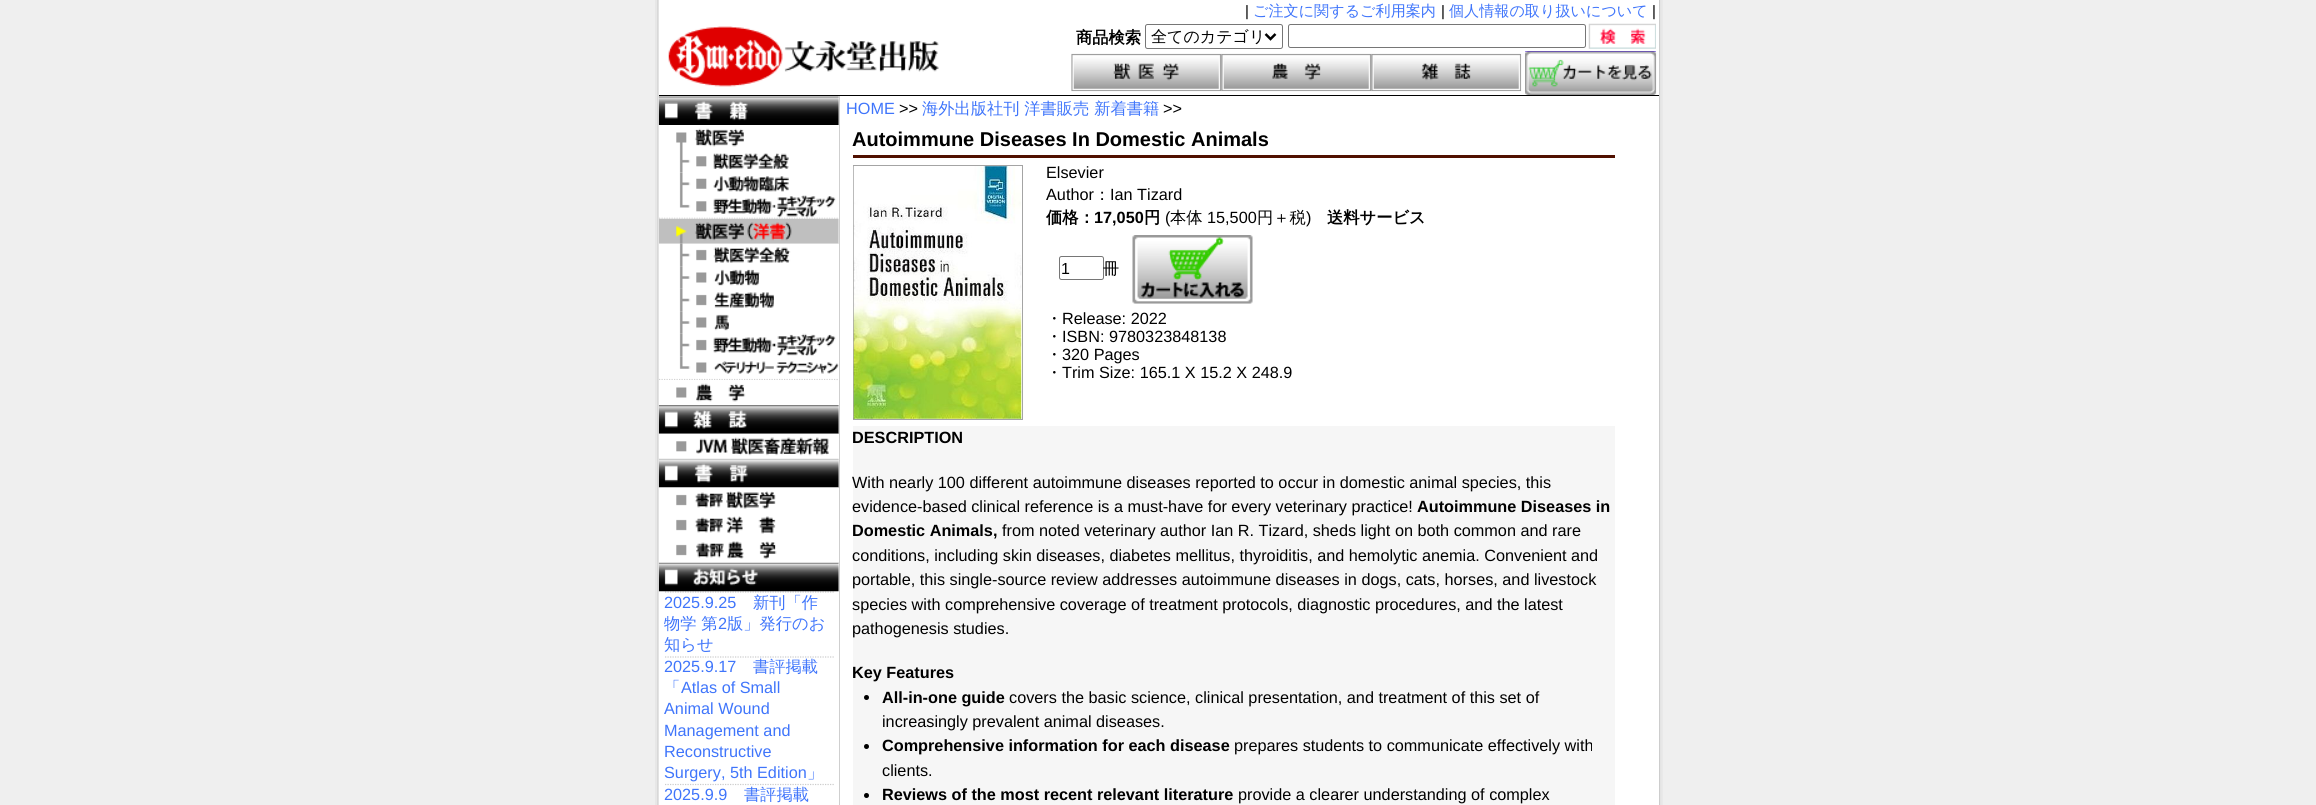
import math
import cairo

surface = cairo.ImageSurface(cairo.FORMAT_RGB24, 2316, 805)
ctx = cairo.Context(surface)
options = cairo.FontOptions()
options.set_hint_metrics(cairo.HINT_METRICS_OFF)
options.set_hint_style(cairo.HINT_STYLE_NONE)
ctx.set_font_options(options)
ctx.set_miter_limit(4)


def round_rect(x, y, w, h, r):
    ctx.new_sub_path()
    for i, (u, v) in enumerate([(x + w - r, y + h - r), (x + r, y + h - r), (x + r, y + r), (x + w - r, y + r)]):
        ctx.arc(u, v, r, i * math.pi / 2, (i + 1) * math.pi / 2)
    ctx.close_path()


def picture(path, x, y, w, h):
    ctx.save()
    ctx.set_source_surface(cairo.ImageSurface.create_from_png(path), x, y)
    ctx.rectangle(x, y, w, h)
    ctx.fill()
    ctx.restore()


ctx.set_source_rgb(0.937, 0.937, 0.937)
ctx.paint()
picture("img1.png", 655, 0, 1008, 805)
picture("img2.png", 658, 0, 182, 805)
ctx.set_source_rgb(1, 1, 1)
ctx.rectangle(838, 0, 821, 95)
ctx.fill()
picture("img3.png", 668, 26, 271, 61)
ctx.select_font_face("Liberation Sans")
ctx.set_font_size(15.1)
ctx.set_source_rgb(0, 0, 0)
ctx.move_to(1245, 16)
ctx.show_text("|")
ctx.select_font_face("WenQuanYi Zen Hei Medium")
ctx.set_source_rgb(0.247, 0.459, 0.984)
ctx.move_to(1253, 16)
ctx.show_text("ご注文に関するご利用案内")
ctx.select_font_face("Liberation Sans")
ctx.set_source_rgb(0, 0, 0)
ctx.move_to(1441, 16)
ctx.show_text("|")
ctx.select_font_face("WenQuanYi Zen Hei Medium")
ctx.set_source_rgb(0.247, 0.459, 0.984)
ctx.move_to(1449, 16)
ctx.show_text("個人情報の取り扱いについて")
ctx.select_font_face("Liberation Sans")
ctx.set_source_rgb(0, 0, 0)
ctx.move_to(1652, 16)
ctx.show_text("|")
ctx.select_font_face("WenQuanYi Zen Hei", cairo.FONT_SLANT_NORMAL, cairo.FONT_WEIGHT_BOLD)
ctx.set_font_size(16.25)
ctx.move_to(1076, 43)
ctx.show_text("商品検索")
round_rect(1145.5, 24.5, 137, 24, 2)
ctx.set_source_rgb(0.463, 0.463, 0.463)
ctx.set_line_width(1)
ctx.stroke()
ctx.new_path()
ctx.move_to(1265.5, 34)
ctx.line_to(1270.5, 39)
ctx.line_to(1275.5, 34)
ctx.set_source_rgb(0, 0, 0)
ctx.set_line_width(2.5)
ctx.stroke()
ctx.select_font_face("WenQuanYi Zen Hei Medium")
ctx.set_font_size(16)
ctx.move_to(1151, 42)
ctx.show_text("全てのカテゴリ")
round_rect(1288.5, 24.5, 297, 23, 2)
ctx.set_source_rgb(0.463, 0.463, 0.463)
ctx.set_line_width(1)
ctx.stroke()
picture("img4.png", 1588, 23, 68, 26)
picture("img5.png", 1071, 53, 151, 39)
picture("img6.png", 1221, 53, 151, 39)
picture("img7.png", 1371, 53, 151, 39)
ctx.set_source_rgb(0.2, 0, 0.8)
ctx.rectangle(1525, 51, 131, 1)
ctx.fill()
picture("img8.png", 1525, 51, 132, 44)
ctx.set_source_rgb(0, 0, 0)
ctx.rectangle(659, 95, 1000, 1)
ctx.fill()
picture("img9.png", 658, 96, 181, 29)
ctx.set_source_rgb(1, 1, 1)
ctx.rectangle(838, 125, 1, 280)
ctx.fill()
picture("img10.png", 676, 128, 68, 22)
picture("img11.png", 679, 150, 110, 23)
picture("img12.png", 679, 172, 110, 23)
ctx.new_path()
ctx.move_to(659, 218)
ctx.line_to(839, 218)
ctx.set_source_rgb(0.827, 0.827, 0.827)
ctx.set_line_width(1.2)
ctx.set_dash([1.25, 1.25])
ctx.stroke()
picture("img13.png", 659, 195, 179, 23)
picture("img14.png", 659, 218, 180, 26)
picture("img15.png", 659, 243, 179, 24)
picture("img16.png", 679, 266, 81, 23)
picture("img17.png", 679, 288, 95, 24)
picture("img18.png", 679, 311, 50, 23)
picture("img19.png", 679, 333, 157, 24)
picture("img20.png", 679, 356, 160, 18)
ctx.new_path()
ctx.move_to(659, 379.5)
ctx.line_to(839, 379.5)
ctx.stroke()
picture("img21.png", 659, 380, 176, 22)
picture("img22.png", 658, 405, 181, 29)
ctx.set_source_rgb(1, 1, 1)
ctx.rectangle(838, 434, 1, 25)
ctx.fill()
picture("img23.png", 659, 433, 180, 23)
picture("img24.png", 658, 458, 181, 30)
ctx.rectangle(838, 488, 1, 317)
ctx.fill()
picture("img25.png", 659, 487, 180, 22)
picture("img26.png", 676, 516, 100, 18)
ctx.new_path()
ctx.move_to(665, 592)
ctx.line_to(834, 592)
ctx.set_source_rgb(0.8, 0.8, 0.8)
ctx.stroke()
picture("img28.png", 658, 562, 181, 30)
picture("img27.png", 659, 541, 180, 22)
ctx.select_font_face("Liberation Sans")
ctx.set_font_size(16.25)
ctx.set_source_rgb(0.247, 0.459, 0.984)
ctx.move_to(664, 608)
ctx.show_text("2025.9.25")
ctx.select_font_face("WenQuanYi Zen Hei Medium")
ctx.move_to(753, 608)
ctx.show_text("新刊「作")
ctx.move_to(664, 629)
ctx.show_text("物学 第")
ctx.select_font_face("Liberation Sans")
ctx.move_to(718, 629)
ctx.show_text("2")
ctx.select_font_face("WenQuanYi Zen Hei Medium")
ctx.move_to(727, 629)
ctx.show_text("版」発行のお")
ctx.move_to(664, 650)
ctx.show_text("知らせ")
ctx.new_path()
ctx.move_to(665, 657)
ctx.line_to(834, 657)
ctx.set_source_rgb(0.8, 0.8, 0.8)
ctx.stroke()
ctx.select_font_face("Liberation Sans")
ctx.set_source_rgb(0.247, 0.459, 0.984)
ctx.move_to(664, 672)
ctx.show_text("2025.9.17")
ctx.select_font_face("WenQuanYi Zen Hei Medium")
ctx.move_to(753, 672)
ctx.show_text("書評掲載")
ctx.move_to(664, 693)
ctx.show_text("「")
ctx.select_font_face("Liberation Sans")
ctx.move_to(681, 693)
ctx.show_text("Atlas of Small")
ctx.move_to(664, 714)
ctx.show_text("Animal Wound")
ctx.move_to(664, 736)
ctx.show_text("Management and")
ctx.move_to(664, 757)
ctx.show_text("Reconstructive")
ctx.move_to(664, 778)
ctx.show_text("Surgery, 5th Edition")
ctx.select_font_face("WenQuanYi Zen Hei Medium")
ctx.move_to(807, 778)
ctx.show_text("」")
ctx.new_path()
ctx.move_to(665, 784.5)
ctx.line_to(834, 784.5)
ctx.set_source_rgb(0.8, 0.8, 0.8)
ctx.stroke()
ctx.select_font_face("Liberation Sans")
ctx.set_source_rgb(0.247, 0.459, 0.984)
ctx.move_to(664, 800)
ctx.show_text("2025.9.9")
ctx.select_font_face("WenQuanYi Zen Hei Medium")
ctx.move_to(744, 800)
ctx.show_text("書評掲載")
ctx.set_source_rgb(1, 1, 1)
ctx.rectangle(1658, 96, 1, 709)
ctx.fill()
ctx.select_font_face("Liberation Sans")
ctx.set_source_rgb(0.247, 0.459, 0.984)
ctx.move_to(846, 114)
ctx.show_text("HOME")
ctx.set_source_rgb(0, 0, 0)
ctx.move_to(899, 114)
ctx.show_text(">>")
ctx.select_font_face("WenQuanYi Zen Hei Medium")
ctx.set_source_rgb(0.247, 0.459, 0.984)
ctx.move_to(922, 114)
ctx.show_text("海外出版社刊 洋書販売 新着書籍")
ctx.select_font_face("Liberation Sans")
ctx.set_source_rgb(0, 0, 0)
ctx.move_to(1163, 114)
ctx.show_text(">>")
ctx.set_source_rgb(0.314, 0.063, 0)
ctx.rectangle(853, 155, 762, 3)
ctx.fill()
ctx.select_font_face("Liberation Sans", cairo.FONT_SLANT_NORMAL, cairo.FONT_WEIGHT_BOLD)
ctx.set_font_size(20)
ctx.set_source_rgb(0, 0, 0)
ctx.move_to(852, 146)
ctx.show_text("Autoimmune Diseases In Domestic Animals")
ctx.rectangle(853.5, 165.5, 169, 254)
ctx.set_source_rgb(0.643, 0.643, 0.643)
ctx.set_line_width(1)
ctx.set_dash([])
ctx.stroke()
picture("img29.png", 853, 166, 169, 253)
ctx.select_font_face("Liberation Sans")
ctx.set_font_size(16.25)
ctx.set_source_rgb(0, 0, 0)
ctx.move_to(1046, 178)
ctx.show_text("Elsevier")
ctx.move_to(1046, 200)
ctx.show_text("Author")
ctx.select_font_face("WenQuanYi Zen Hei Medium")
ctx.move_to(1094, 200)
ctx.show_text("：")
ctx.select_font_face("Liberation Sans")
ctx.move_to(1110, 200)
ctx.show_text("Ian Tizard")
ctx.select_font_face("WenQuanYi Zen Hei", cairo.FONT_SLANT_NORMAL, cairo.FONT_WEIGHT_BOLD)
ctx.move_to(1046, 223)
ctx.show_text("価格：")
ctx.select_font_face("Liberation Sans", cairo.FONT_SLANT_NORMAL, cairo.FONT_WEIGHT_BOLD)
ctx.move_to(1094, 223)
ctx.show_text("17,050")
ctx.select_font_face("WenQuanYi Zen Hei", cairo.FONT_SLANT_NORMAL, cairo.FONT_WEIGHT_BOLD)
ctx.move_to(1144, 223)
ctx.show_text("円")
ctx.select_font_face("Liberation Sans")
ctx.move_to(1165, 223)
ctx.show_text("(")
ctx.select_font_face("WenQuanYi Zen Hei Medium")
ctx.move_to(1170, 223)
ctx.show_text("本体")
ctx.select_font_face("Liberation Sans")
ctx.move_to(1207, 223)
ctx.show_text("15,500")
ctx.select_font_face("WenQuanYi Zen Hei Medium")
ctx.move_to(1257, 223)
ctx.show_text("円＋税")
ctx.select_font_face("Liberation Sans")
ctx.move_to(1306, 223)
ctx.show_text(")")
ctx.select_font_face("WenQuanYi Zen Hei", cairo.FONT_SLANT_NORMAL, cairo.FONT_WEIGHT_BOLD)
ctx.move_to(1327, 223)
ctx.show_text("送料サービス")
round_rect(1059.5, 256.5, 44, 23, 2)
ctx.set_source_rgb(0.463, 0.463, 0.463)
ctx.stroke()
ctx.select_font_face("Liberation Sans")
ctx.set_font_size(16)
ctx.set_source_rgb(0, 0, 0)
ctx.move_to(1061, 274)
ctx.show_text("1")
ctx.select_font_face("WenQuanYi Zen Hei Medium")
ctx.set_font_size(16.25)
ctx.move_to(1103, 274)
ctx.show_text("冊")
picture("img30.png", 1132, 235, 121, 69)
ctx.move_to(1046, 324)
ctx.show_text("・")
ctx.select_font_face("Liberation Sans")
ctx.move_to(1062, 324)
ctx.show_text("Release: 2022")
ctx.select_font_face("WenQuanYi Zen Hei Medium")
ctx.move_to(1046, 342)
ctx.show_text("・")
ctx.select_font_face("Liberation Sans")
ctx.move_to(1062, 342)
ctx.show_text("ISBN: 9780323848138")
ctx.select_font_face("WenQuanYi Zen Hei Medium")
ctx.move_to(1046, 360)
ctx.show_text("・")
ctx.select_font_face("Liberation Sans")
ctx.move_to(1062, 360)
ctx.show_text("320 Pages")
ctx.select_font_face("WenQuanYi Zen Hei Medium")
ctx.move_to(1046, 378)
ctx.show_text("・")
ctx.select_font_face("Liberation Sans")
ctx.move_to(1062, 378)
ctx.show_text("Trim Size: 165.1 X 15.2 X 248.9")
ctx.set_source_rgb(0.961, 0.961, 0.961)
ctx.rectangle(853, 426, 762, 379)
ctx.fill()
ctx.select_font_face("Liberation Sans", cairo.FONT_SLANT_NORMAL, cairo.FONT_WEIGHT_BOLD)
ctx.set_source_rgb(0, 0, 0)
ctx.move_to(852, 443)
ctx.show_text("DESCRIPTION")
ctx.select_font_face("Liberation Sans")
ctx.move_to(852, 488)
ctx.show_text("With nearly 100 different autoimmune diseases reported to occur in domestic animal species, this")
ctx.move_to(852, 512)
ctx.show_text("evidence-based clinical reference is a must-have for every veterinary practice!")
ctx.select_font_face("Liberation Sans", cairo.FONT_SLANT_NORMAL, cairo.FONT_WEIGHT_BOLD)
ctx.move_to(1417, 512)
ctx.show_text("Autoimmune Diseases in")
ctx.move_to(852, 536)
ctx.show_text("Domestic Animals,")
ctx.select_font_face("Liberation Sans")
ctx.move_to(1002, 536)
ctx.show_text("from noted veterinary author Ian R. Tizard, sheds light on both common and rare")
ctx.move_to(852, 561)
ctx.show_text("conditions, including skin diseases, diabetes mellitus, thyroiditis, and hemolytic anemia. Convenient and")
ctx.move_to(852, 585)
ctx.show_text("portable, this single-source review addresses autoimmune diseases in dogs, cats, horses, and livestock")
ctx.move_to(852, 610)
ctx.show_text("species with comprehensive coverage of treatment protocols, diagnostic procedures, and the latest")
ctx.move_to(852, 634)
ctx.show_text("pathogenesis studies.")
ctx.select_font_face("Liberation Sans", cairo.FONT_SLANT_NORMAL, cairo.FONT_WEIGHT_BOLD)
ctx.move_to(852, 678)
ctx.show_text("Key Features")
ctx.new_path()
ctx.arc(866.5, 697.5, 2.5, 0, 2 * math.pi)
ctx.fill()
ctx.move_to(882, 703)
ctx.show_text("All-in-one guide")
ctx.select_font_face("Liberation Sans")
ctx.move_to(1009, 703)
ctx.show_text("covers the basic science, clinical presentation, and treatment of this set of")
ctx.move_to(882, 727)
ctx.show_text("increasingly prevalent animal diseases.")
ctx.new_path()
ctx.arc(866.5, 746.5, 2.5, 0, 2 * math.pi)
ctx.fill()
ctx.select_font_face("Liberation Sans", cairo.FONT_SLANT_NORMAL, cairo.FONT_WEIGHT_BOLD)
ctx.move_to(882, 751)
ctx.show_text("Comprehensive information for each disease")
ctx.select_font_face("Liberation Sans")
ctx.move_to(1234, 751)
ctx.show_text("prepares students to communicate effectively with")
ctx.move_to(882, 776)
ctx.show_text("clients.")
ctx.new_path()
ctx.arc(866.5, 795.5, 2.5, 0, 2 * math.pi)
ctx.fill()
ctx.select_font_face("Liberation Sans", cairo.FONT_SLANT_NORMAL, cairo.FONT_WEIGHT_BOLD)
ctx.move_to(882, 800)
ctx.show_text("Reviews of the most recent relevant literature")
ctx.select_font_face("Liberation Sans")
ctx.move_to(1238, 800)
ctx.show_text("provide a clearer understanding of complex")
surface.write_to_png("page.png")
